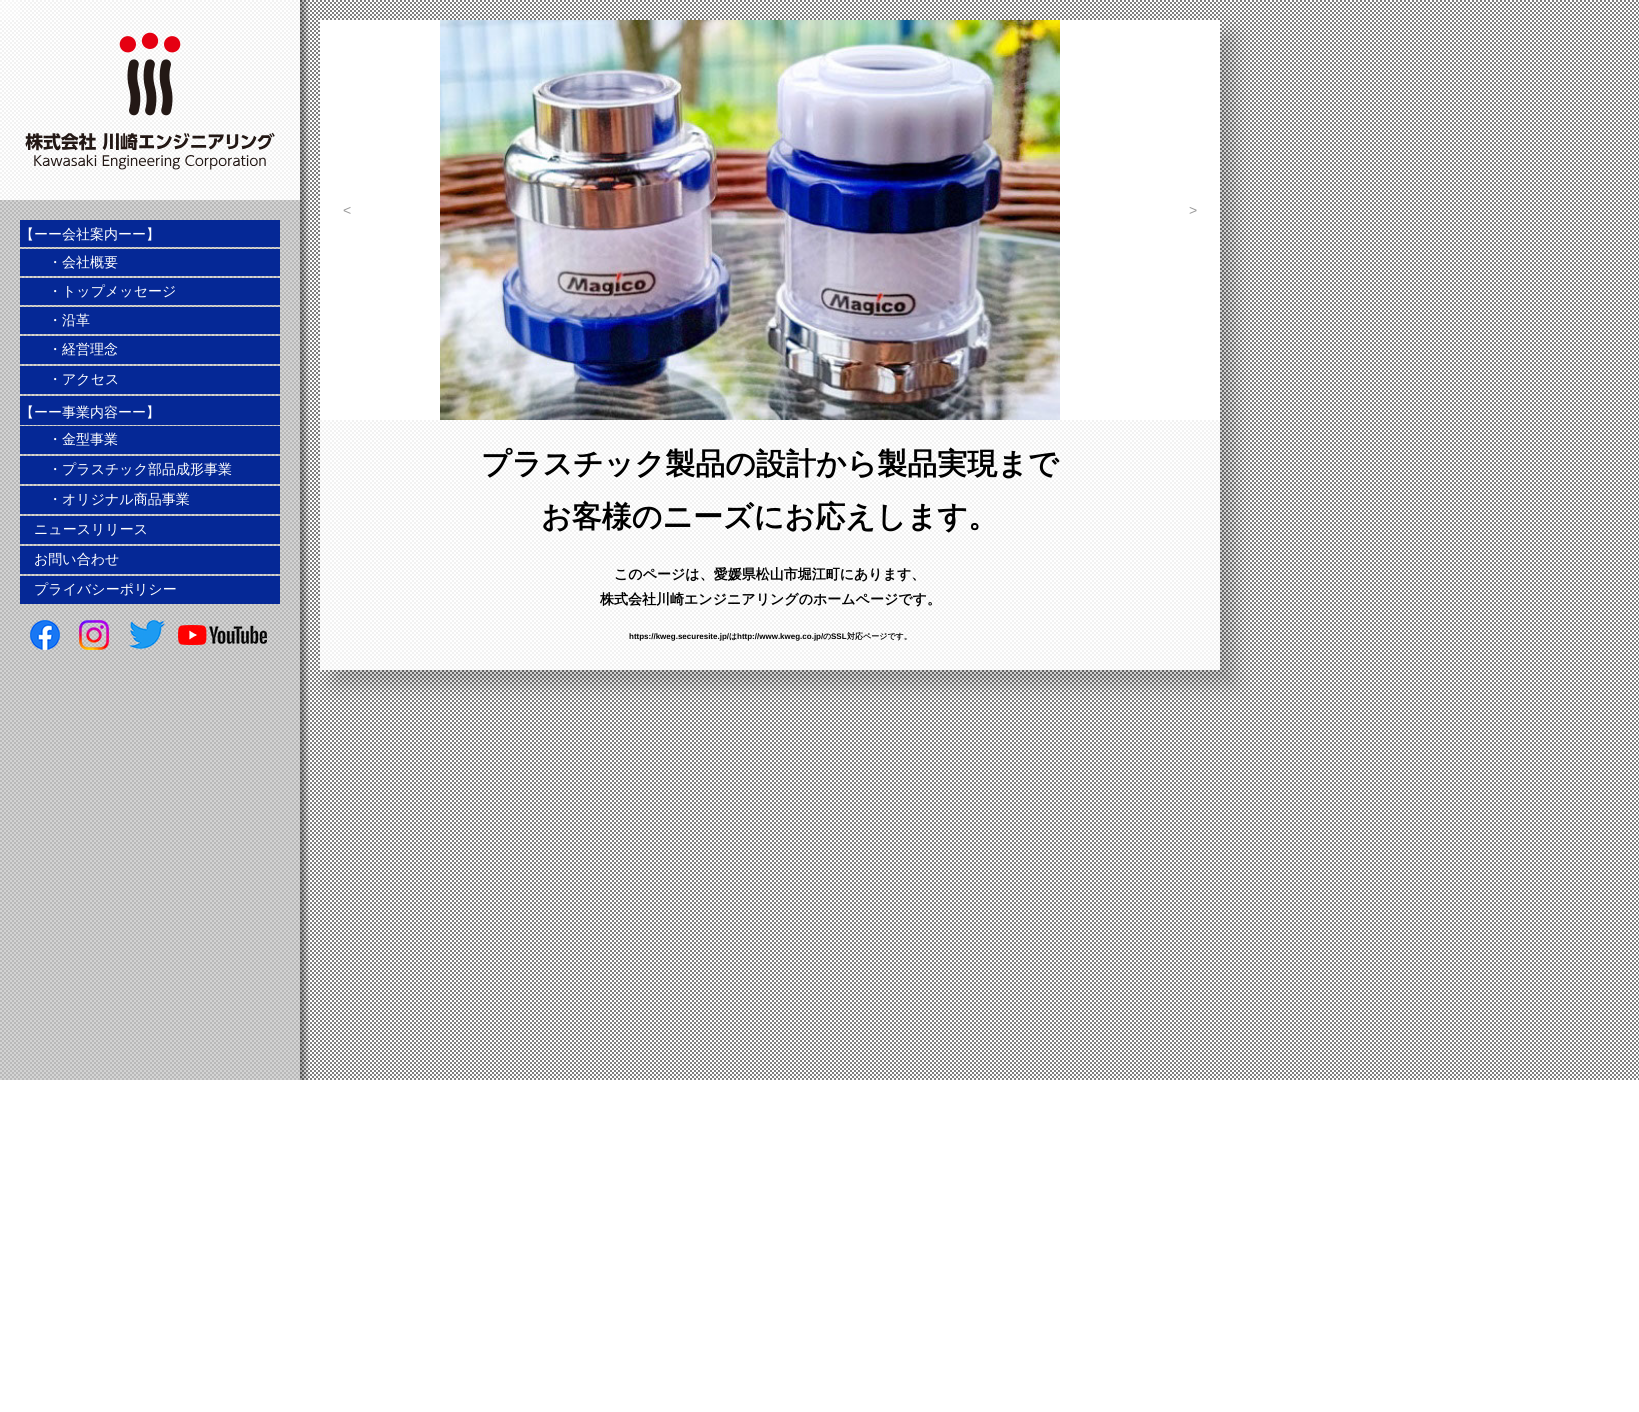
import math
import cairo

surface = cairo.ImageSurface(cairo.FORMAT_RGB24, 1639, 1412)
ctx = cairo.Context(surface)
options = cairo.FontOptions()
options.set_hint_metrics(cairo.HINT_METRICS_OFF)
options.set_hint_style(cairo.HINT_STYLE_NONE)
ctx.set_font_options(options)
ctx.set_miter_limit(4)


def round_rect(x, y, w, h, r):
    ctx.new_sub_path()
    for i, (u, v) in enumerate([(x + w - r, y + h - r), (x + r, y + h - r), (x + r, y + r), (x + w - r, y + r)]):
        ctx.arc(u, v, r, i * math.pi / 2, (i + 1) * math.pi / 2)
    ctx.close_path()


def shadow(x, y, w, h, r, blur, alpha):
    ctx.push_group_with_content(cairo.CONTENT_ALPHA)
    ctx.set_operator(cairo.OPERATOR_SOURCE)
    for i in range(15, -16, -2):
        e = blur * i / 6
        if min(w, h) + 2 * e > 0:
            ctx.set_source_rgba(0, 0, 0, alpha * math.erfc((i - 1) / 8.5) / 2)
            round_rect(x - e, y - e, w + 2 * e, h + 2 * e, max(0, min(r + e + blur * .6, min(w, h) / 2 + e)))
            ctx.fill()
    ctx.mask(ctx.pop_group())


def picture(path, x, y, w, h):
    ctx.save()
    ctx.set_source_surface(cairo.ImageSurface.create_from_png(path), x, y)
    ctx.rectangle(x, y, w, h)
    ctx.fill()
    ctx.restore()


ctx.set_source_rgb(1, 1, 1)
ctx.paint()
picture("img1.png", 0, 0, 1639, 1080)
ctx.set_source_rgba(1, 1, 1, 0.9)
ctx.rectangle(0, 0, 300, 200)
ctx.fill()
ctx.set_source_rgba(1, 1, 1, 0.3)
ctx.rectangle(0, 0, 20, 20)
ctx.fill()
picture("img2.png", 119, 32, 62, 84)
picture("img3.png", 25, 132, 250, 38)
gradient = cairo.LinearGradient(300, 540, 320, 540)
gradient.add_color_stop_rgba(0, 0, 0, 0, 0.4)
gradient.add_color_stop_rgba(0.5, 0, 0, 0, 0)
ctx.set_source(gradient)
ctx.rectangle(300, 0, 9, 1080)
ctx.fill()
ctx.save()
ctx.set_fill_rule(cairo.FILL_RULE_EVEN_ODD)
ctx.new_path()
ctx.move_to(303, 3)
ctx.line_to(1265, 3)
ctx.line_to(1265, 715)
ctx.line_to(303, 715)
ctx.close_path()
ctx.move_to(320, 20)
ctx.line_to(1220, 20)
ctx.line_to(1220, 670)
ctx.line_to(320, 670)
ctx.close_path()
ctx.clip()
ctx.set_source_rgb(0, 0, 0)
shadow(334, 34, 900, 650, 0, 10, 0.22)
ctx.restore()
ctx.set_source_rgba(1, 1, 1, 0.9)
ctx.rectangle(320, 420, 900, 250)
ctx.fill()
ctx.set_source_rgb(1, 1, 1)
ctx.rectangle(320, 20, 900, 400)
ctx.fill()
picture("img4.png", 440, 20, 620, 400)
ctx.select_font_face("Liberation Sans")
ctx.set_font_size(14)
ctx.set_source_rgb(0.6, 0.6, 0.6)
ctx.move_to(343, 215)
ctx.show_text("<")
ctx.move_to(1189, 215)
ctx.show_text(">")
ctx.select_font_face("WenQuanYi Zen Hei", cairo.FONT_SLANT_NORMAL, cairo.FONT_WEIGHT_BOLD)
ctx.set_font_size(30)
ctx.set_source_rgb(0, 0, 0)
ctx.move_to(481, 474)
ctx.show_text("プラスチック製品の設計から製品実現まで")
ctx.move_to(541, 527)
ctx.show_text("お客様のニーズにお応えします。")
ctx.set_font_size(14)
ctx.move_to(614, 579)
ctx.show_text("このページは、愛媛県松山市堀江町にあります、")
ctx.move_to(600, 604)
ctx.show_text("株式会社川崎エンジニアリングのホームページです。")
ctx.select_font_face("Liberation Sans", cairo.FONT_SLANT_NORMAL, cairo.FONT_WEIGHT_BOLD)
ctx.set_font_size(8)
ctx.move_to(629, 639)
ctx.show_text("https://kweg.securesite.jp/")
ctx.select_font_face("WenQuanYi Zen Hei", cairo.FONT_SLANT_NORMAL, cairo.FONT_WEIGHT_BOLD)
ctx.move_to(729, 639)
ctx.show_text("は")
ctx.select_font_face("Liberation Sans", cairo.FONT_SLANT_NORMAL, cairo.FONT_WEIGHT_BOLD)
ctx.move_to(737, 639)
ctx.show_text("http://www.kweg.co.jp/")
ctx.select_font_face("WenQuanYi Zen Hei", cairo.FONT_SLANT_NORMAL, cairo.FONT_WEIGHT_BOLD)
ctx.move_to(823, 639)
ctx.show_text("の")
ctx.select_font_face("Liberation Sans", cairo.FONT_SLANT_NORMAL, cairo.FONT_WEIGHT_BOLD)
ctx.move_to(831, 639)
ctx.show_text("SSL")
ctx.select_font_face("WenQuanYi Zen Hei", cairo.FONT_SLANT_NORMAL, cairo.FONT_WEIGHT_BOLD)
ctx.move_to(847, 639)
ctx.show_text("対応ページです。")
ctx.set_source_rgba(0.784, 0.784, 0.784, 0.8)
ctx.rectangle(0, 200, 300, 880)
ctx.fill()
ctx.set_source_rgb(0.02, 0.157, 0.588)
ctx.rectangle(20, 220, 260, 27)
ctx.fill()
ctx.select_font_face("WenQuanYi Zen Hei Medium")
ctx.set_font_size(14)
ctx.set_source_rgb(1, 1, 1)
ctx.move_to(20, 239)
ctx.show_text("【ーー会社案内ーー】")
ctx.set_source_rgb(0.02, 0.157, 0.588)
ctx.rectangle(20, 249, 260, 27)
ctx.fill()
ctx.set_source_rgb(1, 1, 1)
ctx.move_to(48, 267)
ctx.show_text("・会社概要")
ctx.set_source_rgb(0.02, 0.157, 0.588)
ctx.rectangle(20, 278, 260, 27)
ctx.fill()
ctx.set_source_rgb(1, 1, 1)
ctx.move_to(48, 296)
ctx.show_text("・トップメッセージ")
ctx.set_source_rgb(0.02, 0.157, 0.588)
ctx.rectangle(20, 307, 260, 27)
ctx.fill()
ctx.set_source_rgb(1, 1, 1)
ctx.move_to(48, 325)
ctx.show_text("・沿革")
ctx.set_source_rgb(0.02, 0.157, 0.588)
ctx.rectangle(20, 336, 260, 28)
ctx.fill()
ctx.set_source_rgb(1, 1, 1)
ctx.move_to(48, 354)
ctx.show_text("・経営理念")
ctx.set_source_rgb(0.02, 0.157, 0.588)
ctx.rectangle(20, 366, 260, 28)
ctx.fill()
ctx.set_source_rgb(1, 1, 1)
ctx.move_to(48, 384)
ctx.show_text("・アクセス")
ctx.set_source_rgb(0.02, 0.157, 0.588)
ctx.rectangle(20, 426, 260, 28)
ctx.fill()
ctx.set_source_rgb(1, 1, 1)
ctx.move_to(48, 444)
ctx.show_text("・金型事業")
ctx.set_source_rgb(0.02, 0.157, 0.588)
ctx.rectangle(20, 456, 260, 28)
ctx.fill()
ctx.set_source_rgb(1, 1, 1)
ctx.move_to(48, 474)
ctx.show_text("・プラスチック部品成形事業")
ctx.set_source_rgb(0.02, 0.157, 0.588)
ctx.rectangle(20, 486, 260, 28)
ctx.fill()
ctx.set_source_rgb(1, 1, 1)
ctx.move_to(48, 504)
ctx.show_text("・オリジナル商品事業")
ctx.set_source_rgb(0.02, 0.157, 0.588)
ctx.rectangle(20, 516, 260, 28)
ctx.fill()
ctx.set_source_rgb(1, 1, 1)
ctx.move_to(34, 534)
ctx.show_text("ニュースリリース")
ctx.set_source_rgb(0.02, 0.157, 0.588)
ctx.rectangle(20, 546, 260, 28)
ctx.fill()
ctx.set_source_rgb(1, 1, 1)
ctx.move_to(34, 564)
ctx.show_text("お問い合わせ")
ctx.set_source_rgb(0.02, 0.157, 0.588)
ctx.rectangle(20, 576, 260, 28)
ctx.fill()
ctx.set_source_rgb(1, 1, 1)
ctx.move_to(34, 594)
ctx.show_text("プライバシーポリシー")
ctx.set_source_rgb(0.02, 0.157, 0.588)
ctx.rectangle(20, 396, 260, 29)
ctx.fill()
ctx.set_source_rgb(1, 1, 1)
ctx.move_to(20, 417)
ctx.show_text("【ーー事業内容ーー】")
picture("img5.png", 30, 620, 30, 30)
picture("img6.png", 79, 620, 30, 30)
picture("img7.png", 129, 620, 36, 29)
picture("img8.png", 178, 625, 89, 20)
surface.write_to_png("page.png")
